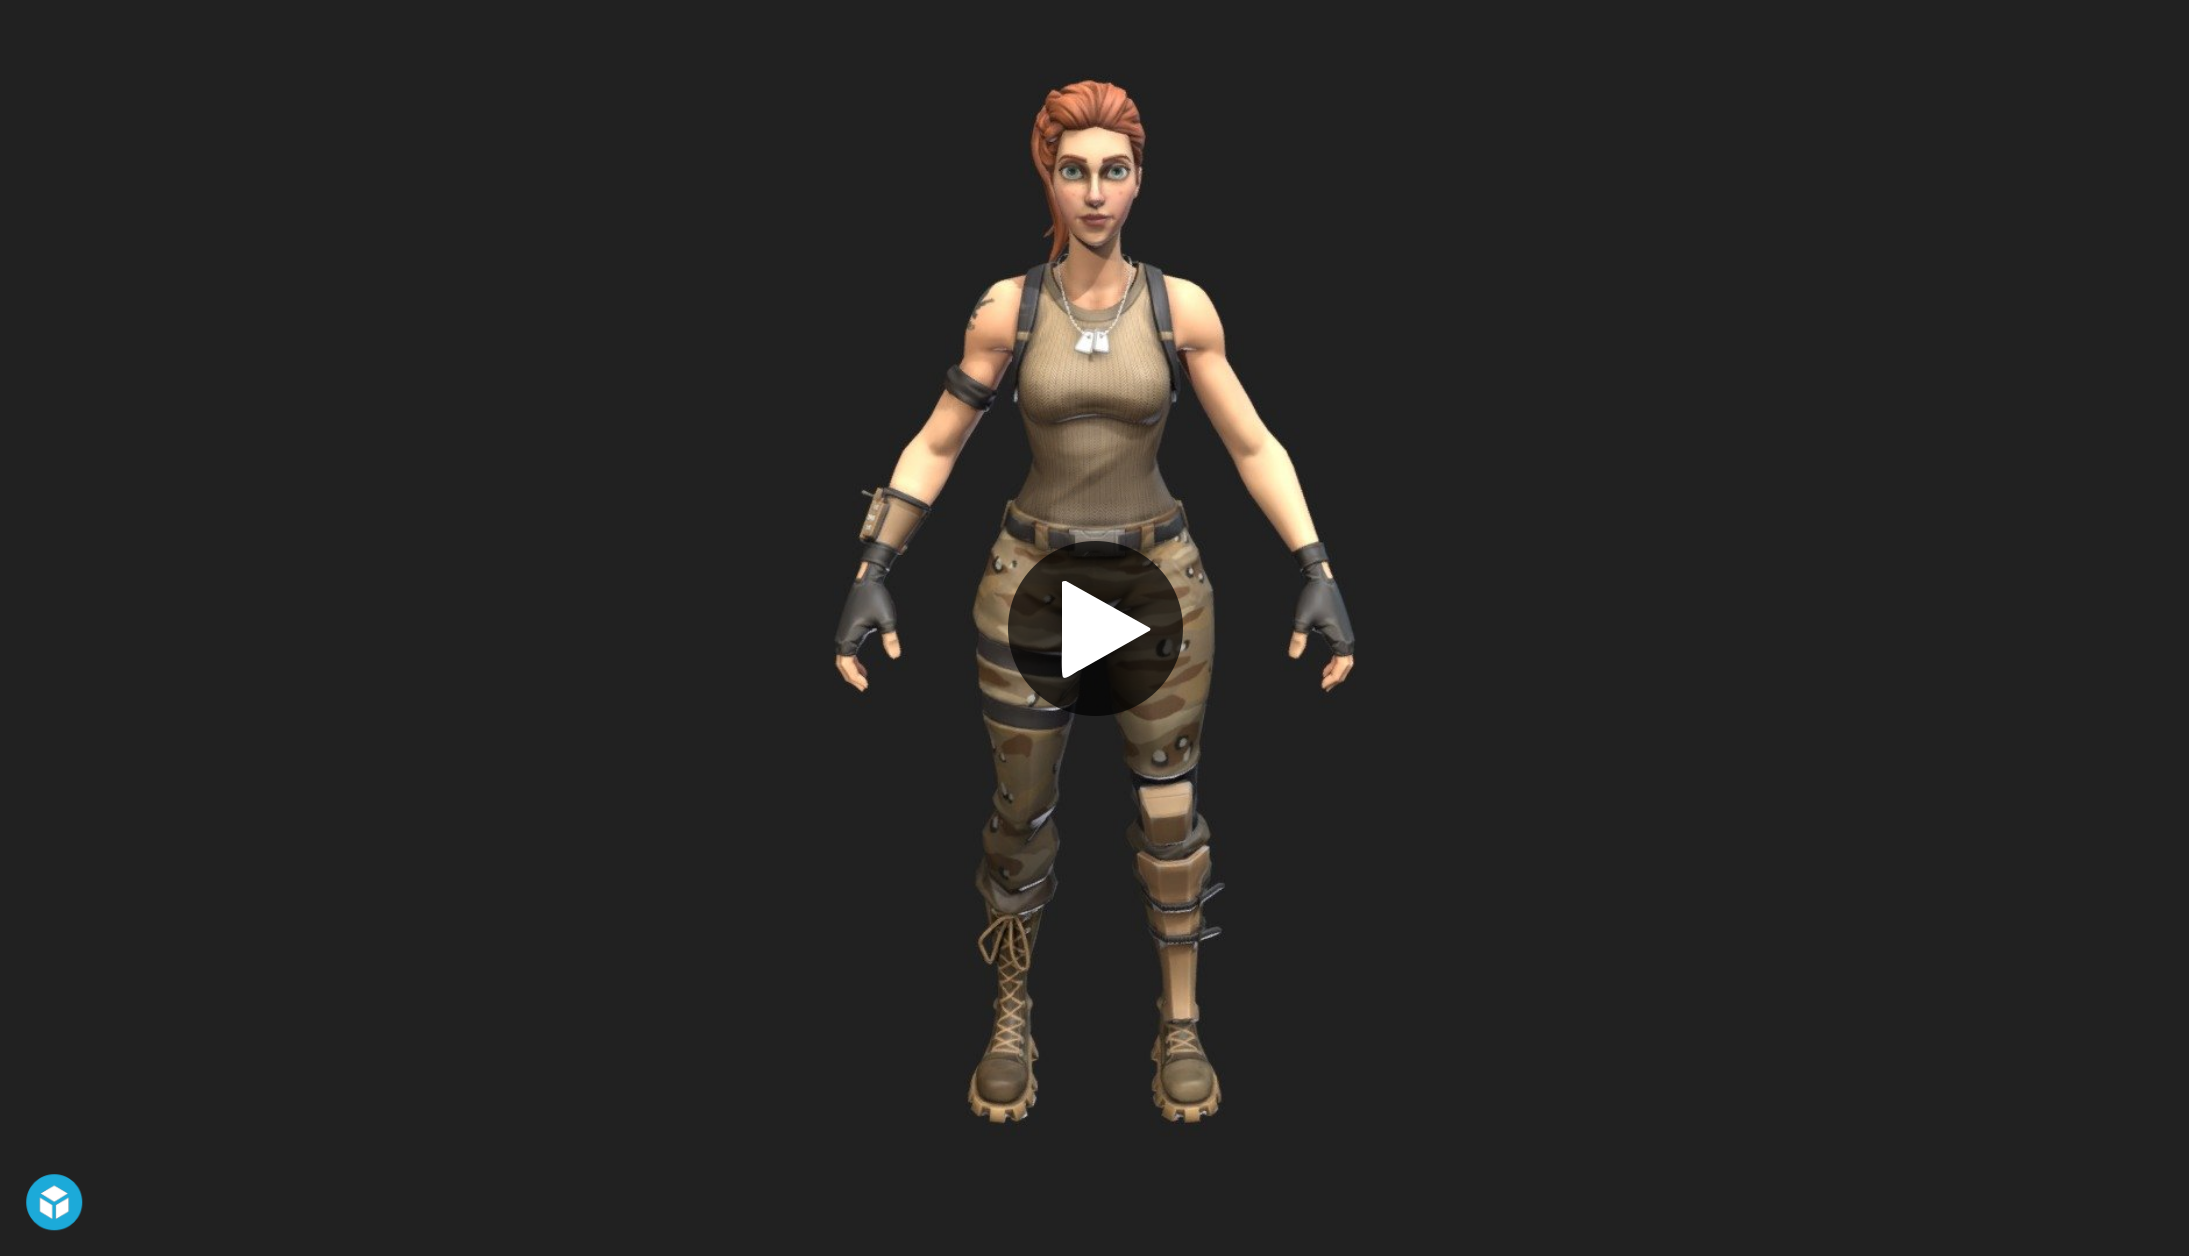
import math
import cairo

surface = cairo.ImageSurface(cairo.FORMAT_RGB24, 2189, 1256)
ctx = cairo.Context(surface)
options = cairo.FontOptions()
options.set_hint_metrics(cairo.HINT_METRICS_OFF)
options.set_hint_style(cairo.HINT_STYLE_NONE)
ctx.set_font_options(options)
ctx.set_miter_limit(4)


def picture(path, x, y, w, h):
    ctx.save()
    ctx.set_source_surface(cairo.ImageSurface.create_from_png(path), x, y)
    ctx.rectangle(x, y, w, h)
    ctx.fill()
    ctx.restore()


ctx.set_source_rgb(1, 1, 1)
ctx.paint()
picture("img1.png", 0, 0, 2189, 1256)
ctx.set_source_rgba(0, 0, 0, 0.7)
ctx.arc(1095.5, 628.5, 87.5, 0, 2 * math.pi)
ctx.fill()
ctx.set_source_rgb(1, 1, 1)
ctx.new_path()
ctx.move_to(1149, 631)
ctx.line_to(1080, 670)
ctx.curve_to(1078, 670, 1065, 681, 1063, 677)
ctx.curve_to(1061, 675, 1062, 648, 1062, 645)
ctx.line_to(1062, 582)
ctx.curve_to(1063, 581, 1064, 581, 1066, 581)
ctx.line_to(1150, 628)
ctx.curve_to(1151, 629, 1150, 631, 1149, 631)
ctx.close_path()
ctx.fill()
picture("img2.png", 26, 1174, 57, 57)
surface.write_to_png("page.png")
